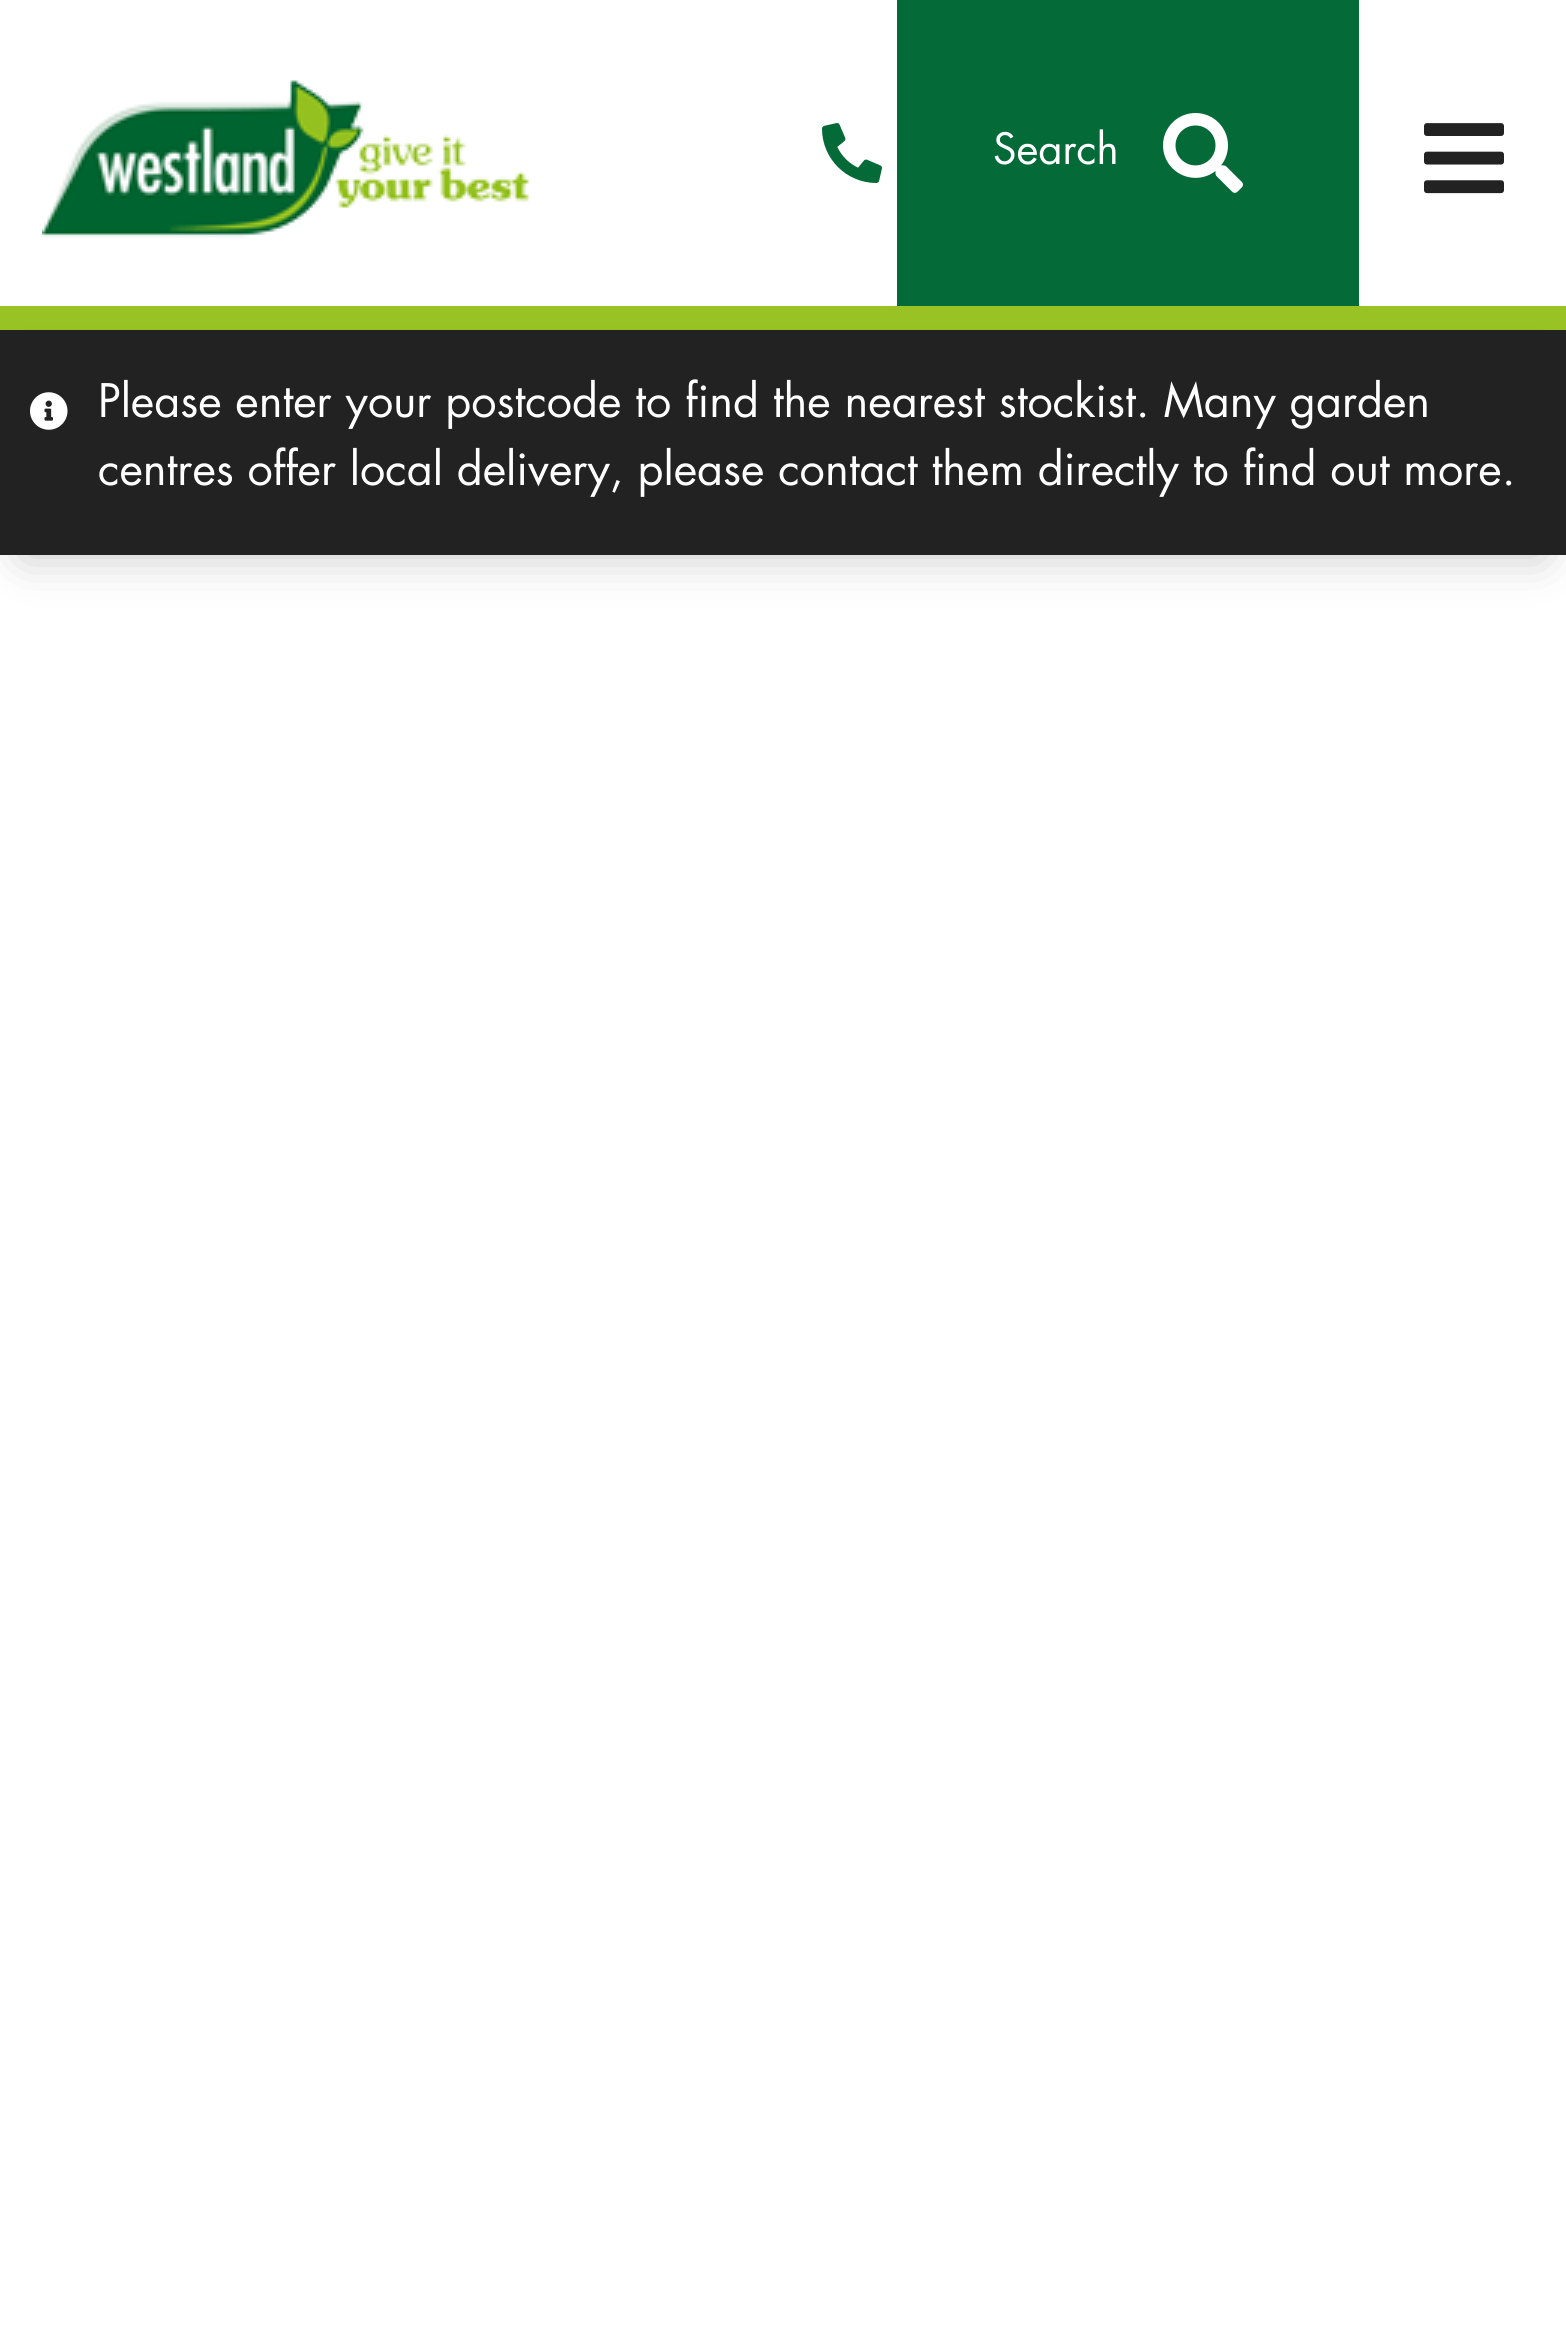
import math
import cairo

surface = cairo.ImageSurface(cairo.FORMAT_RGB24, 1566, 2352)
ctx = cairo.Context(surface)
options = cairo.FontOptions()
options.set_hint_metrics(cairo.HINT_METRICS_OFF)
options.set_hint_style(cairo.HINT_STYLE_NONE)
ctx.set_font_options(options)
ctx.set_miter_limit(4)


def round_rect(x, y, w, h, r):
    ctx.new_sub_path()
    for i, (u, v) in enumerate([(x + w - r, y + h - r), (x + r, y + h - r), (x + r, y + r), (x + w - r, y + r)]):
        ctx.arc(u, v, r, i * math.pi / 2, (i + 1) * math.pi / 2)
    ctx.close_path()


def shadow(x, y, w, h, r, blur, alpha):
    ctx.push_group_with_content(cairo.CONTENT_ALPHA)
    ctx.set_operator(cairo.OPERATOR_SOURCE)
    for i in range(15, -16, -2):
        e = blur * i / 6
        if min(w, h) + 2 * e > 0:
            ctx.set_source_rgba(0, 0, 0, alpha * math.erfc((i - 1) / 8.5) / 2)
            round_rect(x - e, y - e, w + 2 * e, h + 2 * e, max(0, min(r + e + blur * .6, min(w, h) / 2 + e)))
            ctx.fill()
    ctx.mask(ctx.pop_group())


def picture(path, x, y, w, h):
    ctx.save()
    ctx.set_source_surface(cairo.ImageSurface.create_from_png(path), x, y)
    ctx.rectangle(x, y, w, h)
    ctx.fill()
    ctx.restore()


ctx.set_source_rgb(1, 1, 1)
ctx.paint()
ctx.set_source_rgb(0.6, 0.761, 0.141)
ctx.rectangle(0, 306, 1566, 24)
ctx.fill()
picture("img1.png", 42, 80, 488, 158)
picture("img2.png", 822, 123, 60, 60)
ctx.set_source_rgb(0, 0, 0)
shadow(24, 378, 1518, 177, 0, 24, 0.24)
ctx.set_source_rgb(0.016, 0.416, 0.22)
ctx.rectangle(897, 0, 462, 306)
ctx.fill()
ctx.select_font_face("Futura")
ctx.set_font_size(42)
ctx.set_source_rgb(1, 1, 1)
ctx.move_to(993, 164)
ctx.show_text("Search")
picture("img3.png", 1163, 113, 80, 80)
picture("img4.png", 1424, 123, 80, 71)
ctx.set_source_rgb(0.133, 0.133, 0.133)
ctx.rectangle(0, 330, 1566, 225)
ctx.fill()
picture("img5.png", 30, 392, 38, 38)
ctx.set_font_size(45)
ctx.set_source_rgb(1, 1, 1)
ctx.move_to(98, 417)
ctx.show_text("Please enter your postcode to find the nearest stockist. Many garden")
ctx.move_to(98, 485)
ctx.show_text("centres offer local delivery, please contact them directly to find out more.")
surface.write_to_png("page.png")
